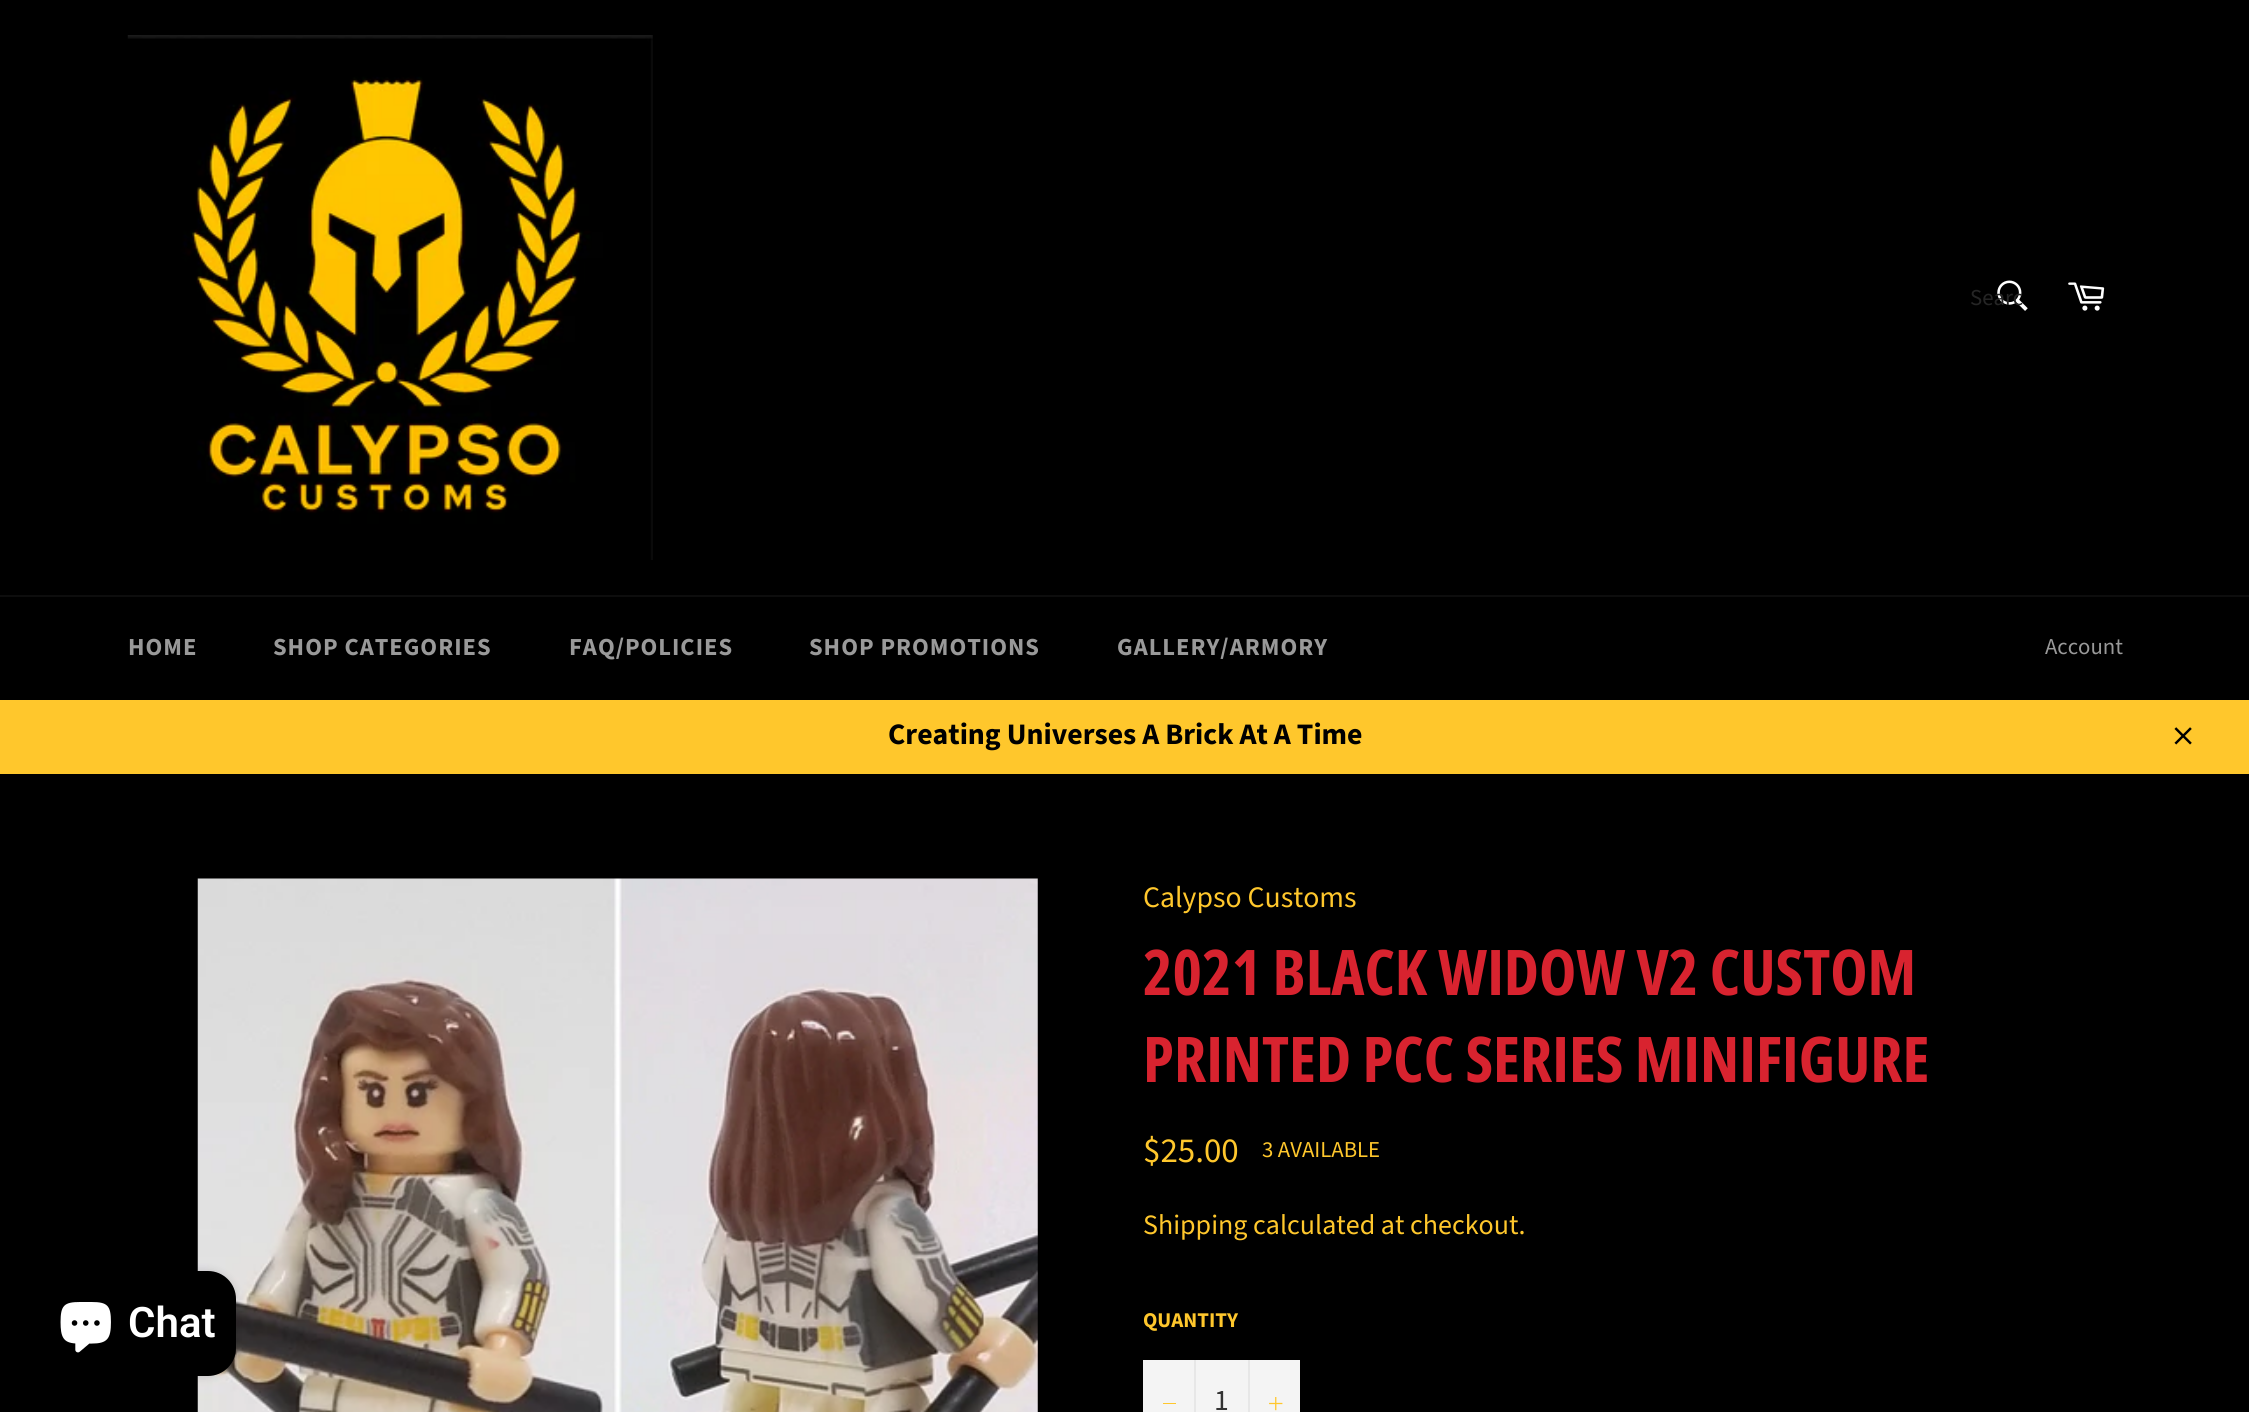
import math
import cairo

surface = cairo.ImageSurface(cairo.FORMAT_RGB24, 2249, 1412)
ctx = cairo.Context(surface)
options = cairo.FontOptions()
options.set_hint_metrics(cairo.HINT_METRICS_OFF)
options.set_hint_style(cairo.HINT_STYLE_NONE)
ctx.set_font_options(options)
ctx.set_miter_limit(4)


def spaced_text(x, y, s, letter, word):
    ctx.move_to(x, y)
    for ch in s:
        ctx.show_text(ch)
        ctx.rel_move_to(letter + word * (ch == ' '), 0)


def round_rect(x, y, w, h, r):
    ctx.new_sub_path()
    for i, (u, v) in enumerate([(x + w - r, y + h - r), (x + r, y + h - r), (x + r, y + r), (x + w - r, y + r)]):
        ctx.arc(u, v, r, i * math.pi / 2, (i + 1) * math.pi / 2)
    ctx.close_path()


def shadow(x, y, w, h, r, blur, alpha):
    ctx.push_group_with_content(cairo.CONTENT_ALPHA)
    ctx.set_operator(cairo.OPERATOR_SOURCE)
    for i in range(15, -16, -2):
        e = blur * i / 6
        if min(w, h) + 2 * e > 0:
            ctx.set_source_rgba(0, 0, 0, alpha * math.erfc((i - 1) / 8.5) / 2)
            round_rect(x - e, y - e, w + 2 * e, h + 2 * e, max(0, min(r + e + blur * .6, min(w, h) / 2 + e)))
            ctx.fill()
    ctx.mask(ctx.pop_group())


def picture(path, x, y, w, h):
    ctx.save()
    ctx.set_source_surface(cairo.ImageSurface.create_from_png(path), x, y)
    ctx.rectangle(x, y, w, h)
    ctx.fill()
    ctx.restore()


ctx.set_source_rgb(0, 0, 0)
ctx.paint()
picture("img1.png", 127, 35, 526, 525)
picture("img2.png", 1997, 280, 31, 31)
ctx.select_font_face("Source Sans Pro")
ctx.set_font_size(22.75)
ctx.set_source_rgb(0.145, 0.145, 0.145)
ctx.move_to(1970, 305)
ctx.show_text("Searc")
picture("img3.png", 2068, 282, 37, 29)
ctx.set_source_rgb(0.051, 0.051, 0.051)
ctx.rectangle(0, 595, 2249, 2)
ctx.fill()
ctx.select_font_face("Source Sans Pro", cairo.FONT_SLANT_NORMAL, cairo.FONT_WEIGHT_BOLD)
ctx.set_font_size(24.5)
ctx.set_source_rgb(0.6, 0.6, 0.6)
spaced_text(128, 655, "HOME", 1, 0)
spaced_text(273, 655, "SHOP CATEGORIES", 1, 0)
spaced_text(569, 655, "FAQ/POLICIES", 1, 0)
spaced_text(809, 655, "SHOP PROMOTIONS", 1, 0)
spaced_text(1117, 655, "GALLERY/ARMORY", 1, 0)
ctx.select_font_face("Source Sans Pro")
ctx.set_font_size(22.75)
ctx.move_to(2045, 654)
ctx.show_text("Account")
ctx.set_source_rgb(1, 0.78, 0.173)
ctx.rectangle(0, 700, 2249, 74)
ctx.fill()
ctx.select_font_face("Source Sans Pro", cairo.FONT_SLANT_NORMAL, cairo.FONT_WEIGHT_BOLD)
ctx.set_font_size(29.75)
ctx.set_source_rgb(0, 0, 0)
ctx.move_to(888, 744)
ctx.show_text("Creating Universes A Brick At A Time")
picture("img4.png", 2174, 727, 18, 18)
picture("img6.png", 197, 878, 841, 534)
ctx.set_source_rgb(0, 0, 0)
shadow(39, 1271, 197, 105, 28, 4.5, 0.15)
ctx.set_source_rgb(0, 0, 0)
round_rect(39, 1271, 197, 105, 28)
ctx.fill()
picture("img5.png", 60, 1302, 51, 51)
ctx.select_font_face("Roboto SemiBold")
ctx.set_font_size(42)
ctx.set_source_rgb(1, 1, 1)
ctx.move_to(128, 1337)
ctx.show_text("Chat")
ctx.select_font_face("Source Sans Pro")
ctx.set_font_size(29.75)
ctx.set_source_rgb(1, 0.78, 0.173)
ctx.move_to(1143, 907)
ctx.show_text("Calypso Customs")
ctx.select_font_face("Open Sans Condensed", cairo.FONT_SLANT_NORMAL, cairo.FONT_WEIGHT_BOLD)
ctx.set_font_size(63)
ctx.set_source_rgb(0.847, 0.137, 0.184)
ctx.move_to(1143, 995)
ctx.show_text("2021 BLACK WIDOW V2 CUSTOM")
ctx.move_to(1143, 1082)
ctx.show_text("PRINTED PCC SERIES MINIFIGURE")
ctx.select_font_face("Source Sans Pro")
ctx.set_font_size(35)
ctx.set_source_rgb(1, 0.78, 0.173)
ctx.move_to(1143, 1162)
ctx.show_text("$25.00")
ctx.set_font_size(22.75)
ctx.move_to(1262, 1157)
ctx.show_text("3 AVAILABLE")
ctx.set_font_size(28)
ctx.move_to(1143, 1234)
ctx.show_text("Shipping calculated at checkout.")
ctx.select_font_face("Source Sans Pro", cairo.FONT_SLANT_NORMAL, cairo.FONT_WEIGHT_BOLD)
ctx.set_font_size(21)
ctx.move_to(1143, 1327)
ctx.show_text("QUANTITY")
ctx.set_source_rgb(0.957, 0.957, 0.957)
ctx.rectangle(1143, 1360, 157, 52)
ctx.fill()
ctx.set_source_rgb(0.906, 0.906, 0.906)
ctx.rectangle(1194, 1360, 2, 52)
ctx.fill()
ctx.set_source_rgb(1, 0.78, 0.173)
ctx.rectangle(1163, 1403, 13, 1)
ctx.fill()
ctx.select_font_face("Source Sans Pro")
ctx.set_font_size(29.75)
ctx.set_source_rgb(0.2, 0.2, 0.2)
ctx.move_to(1214, 1410)
ctx.show_text("1")
ctx.set_source_rgb(0.906, 0.906, 0.906)
ctx.rectangle(1248, 1360, 2, 52)
ctx.fill()
picture("img7.png", 1269, 1397, 14, 14)
surface.write_to_png("page.png")
